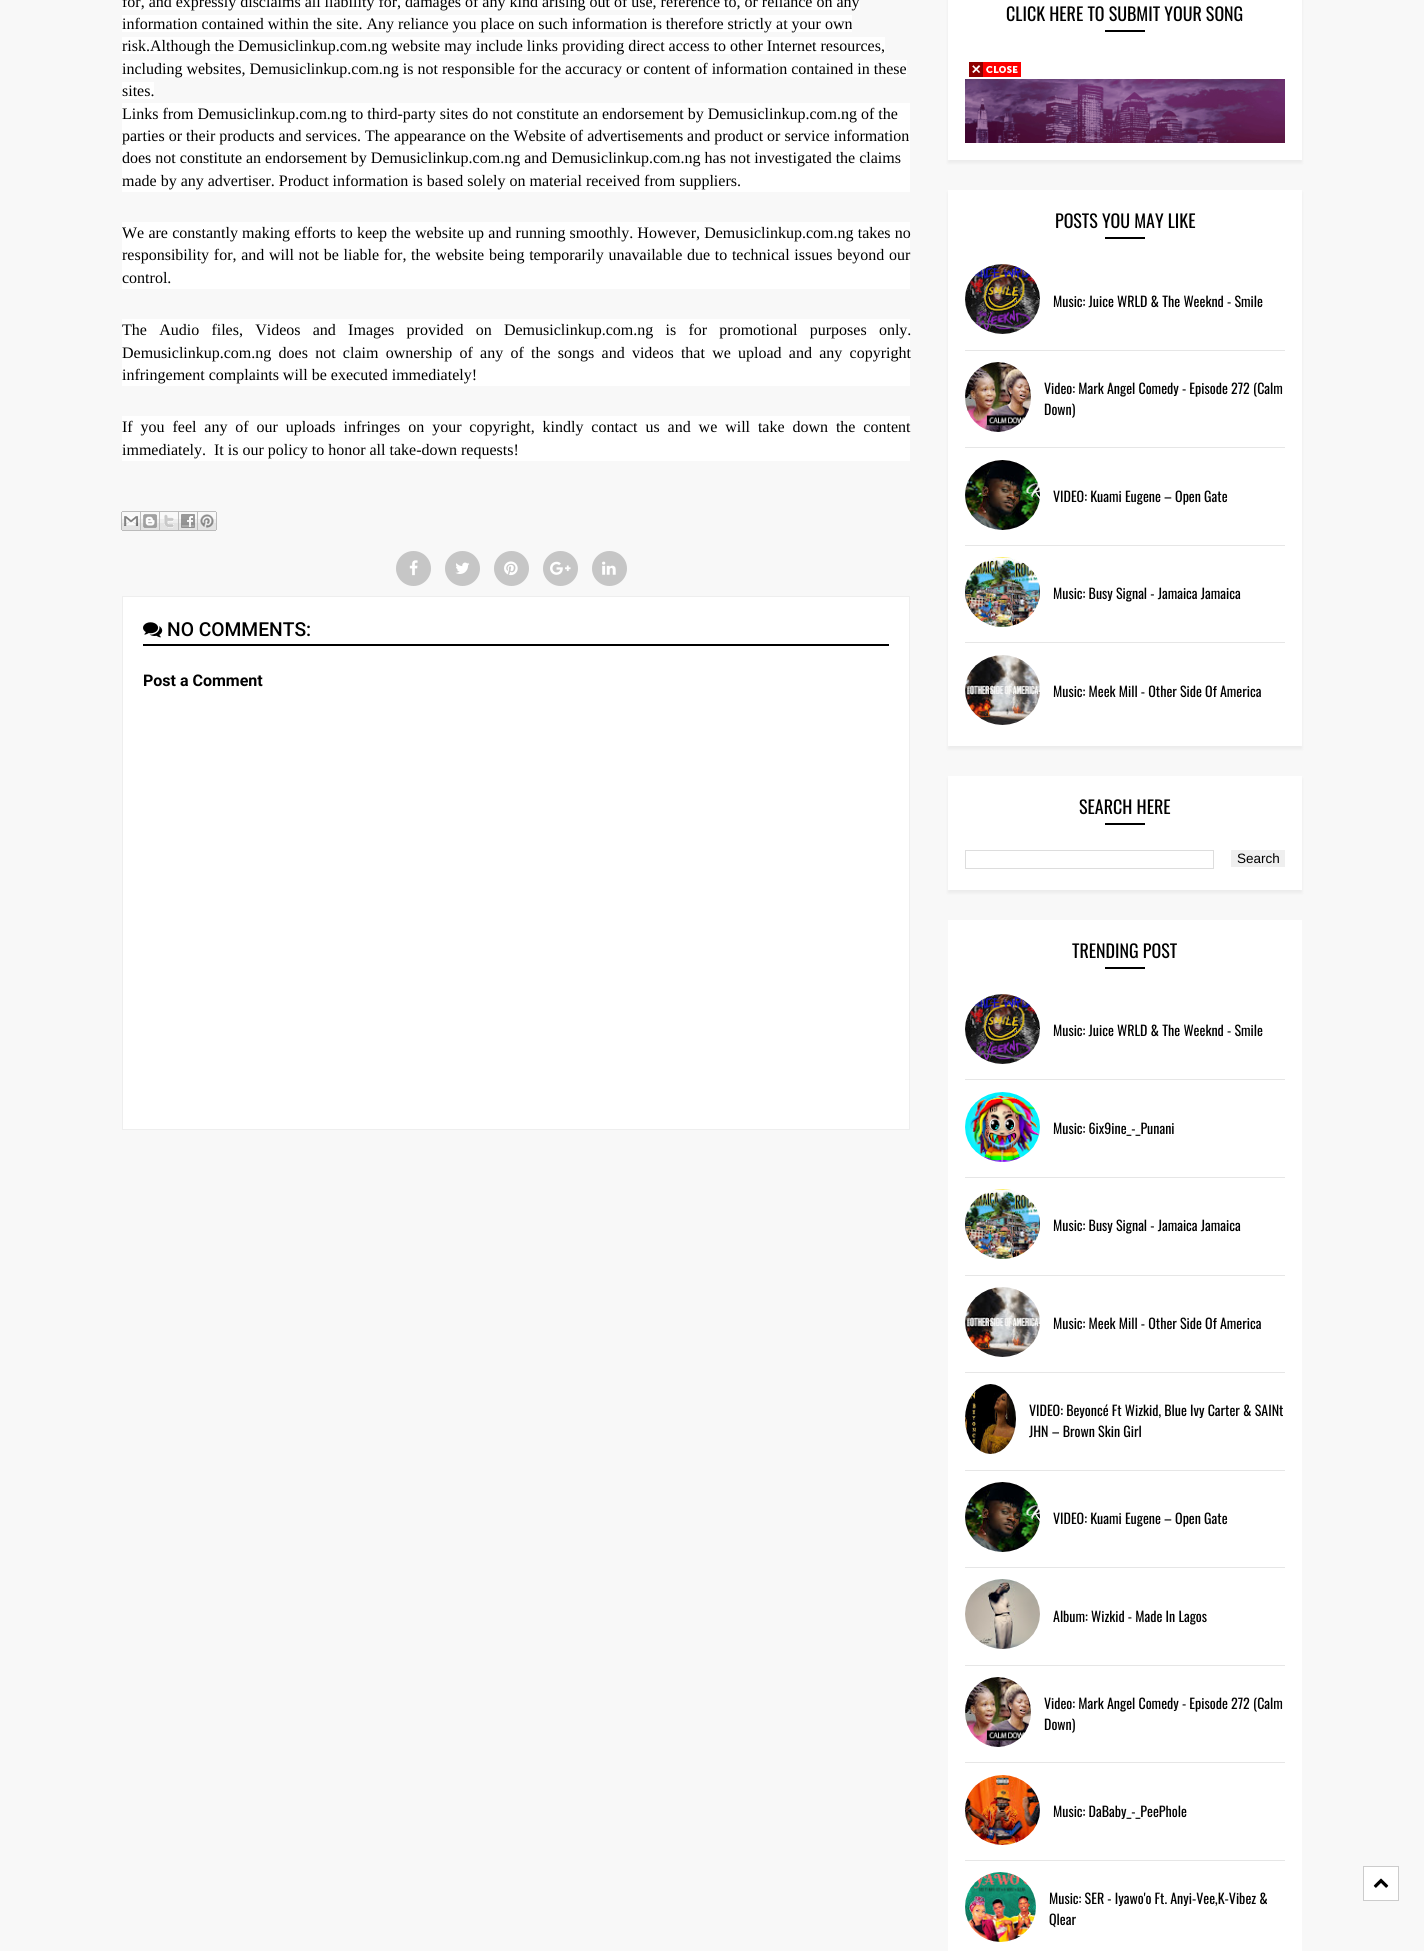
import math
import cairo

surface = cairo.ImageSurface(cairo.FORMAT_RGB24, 1424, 1951)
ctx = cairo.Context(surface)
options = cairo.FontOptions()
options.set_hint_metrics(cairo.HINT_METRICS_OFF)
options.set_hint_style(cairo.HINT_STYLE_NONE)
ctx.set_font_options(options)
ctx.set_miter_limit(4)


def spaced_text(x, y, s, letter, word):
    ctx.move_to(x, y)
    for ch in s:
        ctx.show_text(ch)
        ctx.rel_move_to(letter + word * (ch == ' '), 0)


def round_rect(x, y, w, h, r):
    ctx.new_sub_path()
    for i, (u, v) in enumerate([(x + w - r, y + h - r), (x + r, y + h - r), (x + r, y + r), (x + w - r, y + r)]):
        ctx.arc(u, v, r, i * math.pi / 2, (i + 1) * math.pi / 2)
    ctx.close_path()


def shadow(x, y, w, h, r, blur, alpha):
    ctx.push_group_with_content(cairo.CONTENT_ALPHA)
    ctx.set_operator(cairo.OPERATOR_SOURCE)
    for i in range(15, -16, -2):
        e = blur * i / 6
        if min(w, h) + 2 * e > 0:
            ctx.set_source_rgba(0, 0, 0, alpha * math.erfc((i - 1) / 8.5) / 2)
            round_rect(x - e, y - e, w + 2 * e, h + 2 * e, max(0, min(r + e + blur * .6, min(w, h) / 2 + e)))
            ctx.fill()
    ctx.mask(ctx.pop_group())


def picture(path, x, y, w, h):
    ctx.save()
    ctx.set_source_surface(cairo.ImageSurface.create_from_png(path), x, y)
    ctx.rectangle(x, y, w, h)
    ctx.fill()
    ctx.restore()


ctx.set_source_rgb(0.969, 0.969, 0.969)
ctx.paint()
ctx.set_source_rgb(1, 1, 1)
ctx.rectangle(122, 0, 738, 10)
ctx.fill()
ctx.select_font_face("Liberation Serif")
ctx.set_font_size(16)
ctx.set_source_rgb(0, 0, 0)
ctx.move_to(122, 7)
ctx.show_text("for, and expressly disclaims all liability for, damages of any kind arising out of use, reference to, or reliance on any")
ctx.set_source_rgb(1, 1, 1)
ctx.rectangle(122, 15, 730, 17)
ctx.fill()
ctx.set_source_rgb(0, 0, 0)
ctx.move_to(122, 29)
ctx.show_text("information contained within the site. Any reliance you place on such information is therefore strictly at your own")
ctx.set_source_rgb(1, 1, 1)
ctx.rectangle(122, 37, 763, 17)
ctx.fill()
ctx.set_source_rgb(0, 0, 0)
ctx.move_to(122, 51)
ctx.show_text("risk.Although the Demusiclinkup.com.ng website may include links providing direct access to other Internet resources,")
ctx.set_source_rgb(1, 1, 1)
ctx.rectangle(122, 60, 785, 17)
ctx.fill()
ctx.set_source_rgb(0, 0, 0)
ctx.move_to(122, 74)
ctx.show_text("including websites, Demusiclinkup.com.ng is not responsible for the accuracy or content of information contained in these")
ctx.set_source_rgb(1, 1, 1)
ctx.rectangle(122, 82, 32, 17)
ctx.fill()
ctx.set_source_rgb(0, 0, 0)
ctx.move_to(122, 96)
ctx.show_text("sites.")
ctx.set_source_rgb(1, 1, 1)
ctx.rectangle(122, 103, 788, 89)
ctx.fill()
ctx.set_source_rgb(0, 0, 0)
ctx.move_to(122, 119)
ctx.show_text("Links from Demusiclinkup.com.ng to third-party sites do not constitute an endorsement by Demusiclinkup.com.ng of the")
ctx.move_to(122, 141)
ctx.show_text("parties or their products and services. The appearance on the Website of advertisements and product or service information")
ctx.move_to(122, 163)
ctx.show_text("does not constitute an endorsement by Demusiclinkup.com.ng and Demusiclinkup.com.ng has not investigated the claims")
ctx.move_to(122, 186)
ctx.show_text("made by any advertiser. Product information is based solely on material received from suppliers.")
ctx.set_source_rgb(1, 1, 1)
ctx.rectangle(122, 222, 788, 67)
ctx.fill()
ctx.set_source_rgb(0, 0, 0)
spaced_text(122, 238, "We are constantly making efforts to keep the website up and running smoothly. However, Demusiclinkup.com.ng takes no", 0, 0.2)
spaced_text(122, 260, "responsibility for, and will not be liable for, the website being temporarily unavailable due to technical issues beyond our", 0, 0.7)
ctx.move_to(122, 283)
ctx.show_text("control.")
ctx.set_source_rgb(1, 1, 1)
ctx.rectangle(122, 319, 788, 67)
ctx.fill()
ctx.set_source_rgb(0, 0, 0)
spaced_text(122, 335, "The Audio files, Videos and Images provided on Demusiclinkup.com.ng is for promotional purposes only.", 0, 8.25)
spaced_text(122, 358, "Demusiclinkup.com.ng does not claim ownership of any of the songs and videos that we upload and any copyright", 0, 3.25)
ctx.move_to(122, 380)
ctx.show_text("infringement complaints will be executed immediately!")
ctx.set_source_rgb(1, 1, 1)
ctx.rectangle(122, 416, 788, 45)
ctx.fill()
ctx.set_source_rgb(0, 0, 0)
spaced_text(122, 432, "If you feel any of our uploads infringes on your copyright, kindly contact us and we will take down the content", 0, 3.9)
ctx.move_to(122, 455)
ctx.show_text("immediately.  It is our policy to honor all take-down requests!")
picture("img1.png", 121, 511, 20, 20)
picture("img2.png", 141, 511, 19, 20)
picture("img3.png", 160, 511, 19, 20)
picture("img4.png", 179, 511, 19, 20)
picture("img5.png", 198, 511, 19, 20)
ctx.set_source_rgb(0.776, 0.776, 0.776)
ctx.arc(413.5, 568.5, 17.5, 0, 2 * math.pi)
ctx.fill()
picture("img6.png", 409, 560, 9, 16)
ctx.arc(462.5, 568.5, 17.5, 0, 2 * math.pi)
ctx.fill()
picture("img7.png", 455, 562, 15, 12)
ctx.arc(511.5, 568.5, 17.5, 0, 2 * math.pi)
ctx.fill()
picture("img8.png", 504, 561, 14, 15)
ctx.arc(560.5, 568.5, 17.5, 0, 2 * math.pi)
ctx.fill()
picture("img9.png", 550, 561, 21, 14)
ctx.arc(609.5, 568.5, 17.5, 0, 2 * math.pi)
ctx.fill()
picture("img10.png", 602, 561, 14, 14)
ctx.set_source_rgb(1, 1, 1)
ctx.rectangle(122.5, 596.5, 787, 533)
ctx.fill_preserve()
ctx.set_source_rgb(0.933, 0.933, 0.933)
ctx.set_line_width(1)
ctx.stroke()
ctx.set_source_rgb(0, 0, 0)
ctx.rectangle(143, 644, 746, 2)
ctx.fill()
picture("img11.png", 143, 622, 20, 16)
ctx.select_font_face("Roboto Medium")
ctx.set_font_size(19.25)
ctx.move_to(167, 636)
ctx.show_text("NO COMMENTS:")
ctx.select_font_face("Roboto", cairo.FONT_SLANT_NORMAL, cairo.FONT_WEIGHT_BOLD)
ctx.set_font_size(16)
ctx.move_to(143, 686)
ctx.show_text("Post a Comment")
ctx.set_source_rgb(0, 0, 0)
shadow(948, -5, 354, 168, 0, 1.5, 0.05)
ctx.set_source_rgb(1, 1, 1)
ctx.rectangle(948, 0, 354, 160)
ctx.fill()
ctx.select_font_face("Oswald")
ctx.set_font_size(18)
ctx.set_source_rgb(0, 0, 0)
ctx.move_to(1006, 21)
ctx.show_text("CLICK HERE TO SUBMIT YOUR SONG")
ctx.rectangle(1105, 30, 40, 2)
ctx.fill()
picture("img12.png", 969, 62, 52, 15)
picture("img13.png", 965, 79, 320, 64)
ctx.set_source_rgb(0, 0, 0)
shadow(948, 193, 354, 556, 0, 1.5, 0.05)
ctx.set_source_rgb(1, 1, 1)
ctx.rectangle(948, 190, 354, 556)
ctx.fill()
ctx.set_source_rgb(0, 0, 0)
ctx.move_to(1055, 228)
ctx.show_text("POSTS YOU MAY LIKE")
ctx.rectangle(1105, 237, 40, 2)
ctx.fill()
ctx.set_source_rgb(0.902, 0.902, 0.902)
ctx.rectangle(965, 350, 320, 1)
ctx.fill()
picture("img14.png", 965, 264, 75, 70)
ctx.set_font_size(14)
ctx.set_source_rgb(0, 0, 0)
ctx.move_to(1053, 307)
ctx.show_text("Music: Juice WRLD & The Weeknd - Smile")
ctx.set_source_rgb(0.902, 0.902, 0.902)
ctx.rectangle(965, 447, 320, 1)
ctx.fill()
picture("img15.png", 965, 362, 66, 70)
ctx.set_source_rgb(0, 0, 0)
ctx.move_to(1044, 394)
ctx.show_text("Video: Mark Angel Comedy - Episode 272 (Calm")
ctx.move_to(1044, 415)
ctx.show_text("Down)")
ctx.set_source_rgb(0.902, 0.902, 0.902)
ctx.rectangle(965, 545, 320, 1)
ctx.fill()
picture("img16.png", 965, 460, 75, 70)
ctx.set_source_rgb(0, 0, 0)
ctx.move_to(1053, 502)
ctx.show_text("VIDEO: Kuami Eugene – Open Gate")
ctx.set_source_rgb(0.902, 0.902, 0.902)
ctx.rectangle(965, 642, 320, 1)
ctx.fill()
picture("img17.png", 965, 557, 75, 70)
ctx.set_source_rgb(0, 0, 0)
ctx.move_to(1053, 599)
ctx.show_text("Music: Busy Signal - Jamaica Jamaica")
picture("img18.png", 965, 655, 75, 70)
ctx.move_to(1053, 697)
ctx.show_text("Music: Meek Mill - Other Side Of America")
ctx.set_source_rgb(0, 0, 0)
shadow(948, 779, 354, 114, 0, 1.5, 0.05)
ctx.set_source_rgb(1, 1, 1)
ctx.rectangle(948, 776, 354, 114)
ctx.fill()
ctx.set_font_size(18)
ctx.set_source_rgb(0, 0, 0)
ctx.move_to(1079, 814)
ctx.show_text("SEARCH HERE")
ctx.rectangle(1105, 823, 40, 2)
ctx.fill()
ctx.rectangle(965.5, 850.5, 248, 18)
ctx.set_source_rgb(0.867, 0.867, 0.867)
ctx.stroke()
ctx.set_source_rgb(0.937, 0.937, 0.937)
ctx.rectangle(1231, 850, 54, 17)
ctx.fill()
ctx.select_font_face("Liberation Sans")
ctx.set_font_size(13.5)
ctx.set_source_rgb(0, 0, 0)
ctx.move_to(1237, 863)
ctx.show_text("Search")
ctx.set_source_rgb(1, 1, 1)
ctx.rectangle(948, 920, 354, 1031)
ctx.fill()
ctx.select_font_face("Oswald")
ctx.set_font_size(18)
ctx.set_source_rgb(0, 0, 0)
ctx.move_to(1072, 958)
ctx.show_text("TRENDING POST")
ctx.rectangle(1105, 967, 40, 2)
ctx.fill()
ctx.set_source_rgb(0.902, 0.902, 0.902)
ctx.rectangle(965, 1079, 320, 1)
ctx.fill()
picture("img19.png", 965, 994, 75, 70)
ctx.set_font_size(14)
ctx.set_source_rgb(0, 0, 0)
ctx.move_to(1053, 1036)
ctx.show_text("Music: Juice WRLD & The Weeknd - Smile")
ctx.set_source_rgb(0.902, 0.902, 0.902)
ctx.rectangle(965, 1177, 320, 1)
ctx.fill()
picture("img20.png", 965, 1092, 75, 70)
ctx.set_source_rgb(0, 0, 0)
ctx.move_to(1053, 1134)
ctx.show_text("Music: 6ix9ine_-_Punani")
ctx.set_source_rgb(0.902, 0.902, 0.902)
ctx.rectangle(965, 1275, 320, 1)
ctx.fill()
picture("img17.png", 965, 1189, 75, 70)
ctx.set_source_rgb(0, 0, 0)
ctx.move_to(1053, 1231)
ctx.show_text("Music: Busy Signal - Jamaica Jamaica")
ctx.set_source_rgb(0.902, 0.902, 0.902)
ctx.rectangle(965, 1372, 320, 1)
ctx.fill()
picture("img18.png", 965, 1287, 75, 70)
ctx.set_source_rgb(0, 0, 0)
ctx.move_to(1053, 1329)
ctx.show_text("Music: Meek Mill - Other Side Of America")
ctx.set_source_rgb(0.902, 0.902, 0.902)
ctx.rectangle(965, 1470, 320, 1)
ctx.fill()
picture("img21.png", 965, 1384, 51, 70)
ctx.set_source_rgb(0, 0, 0)
ctx.move_to(1029, 1416)
ctx.show_text("VIDEO: Beyoncé Ft Wizkid, Blue Ivy Carter & SAINt")
ctx.move_to(1029, 1437)
ctx.show_text("JHN – Brown Skin Girl")
ctx.set_source_rgb(0.902, 0.902, 0.902)
ctx.rectangle(965, 1567, 320, 1)
ctx.fill()
picture("img22.png", 965, 1482, 75, 70)
ctx.set_source_rgb(0, 0, 0)
ctx.move_to(1053, 1524)
ctx.show_text("VIDEO: Kuami Eugene – Open Gate")
ctx.set_source_rgb(0.902, 0.902, 0.902)
ctx.rectangle(965, 1665, 320, 1)
ctx.fill()
picture("img23.png", 965, 1579, 75, 70)
ctx.set_source_rgb(0, 0, 0)
ctx.move_to(1053, 1622)
ctx.show_text("Album: Wizkid - Made In Lagos")
ctx.set_source_rgb(0.902, 0.902, 0.902)
ctx.rectangle(965, 1762, 320, 1)
ctx.fill()
picture("img15.png", 965, 1677, 66, 70)
ctx.set_source_rgb(0, 0, 0)
ctx.move_to(1044, 1709)
ctx.show_text("Video: Mark Angel Comedy - Episode 272 (Calm")
ctx.move_to(1044, 1730)
ctx.show_text("Down)")
ctx.set_source_rgb(0.902, 0.902, 0.902)
ctx.rectangle(965, 1860, 320, 1)
ctx.fill()
picture("img24.png", 965, 1775, 75, 70)
ctx.set_source_rgb(0, 0, 0)
ctx.move_to(1053, 1817)
ctx.show_text("Music: DaBaby_-_PeePhole")
picture("img25.png", 965, 1872, 71, 70)
ctx.move_to(1049, 1904)
ctx.show_text("Music: SER - Iyawo'o Ft. Anyi-Vee,K-Vibez &")
ctx.move_to(1049, 1925)
ctx.show_text("Qlear")
ctx.set_source_rgb(1, 1, 1)
ctx.rectangle(1363.5, 1866.5, 35, 34)
ctx.fill_preserve()
ctx.set_source_rgb(0.8, 0.8, 0.8)
ctx.stroke()
picture("img26.png", 1373, 1878, 16, 10)
surface.write_to_png("page.png")
